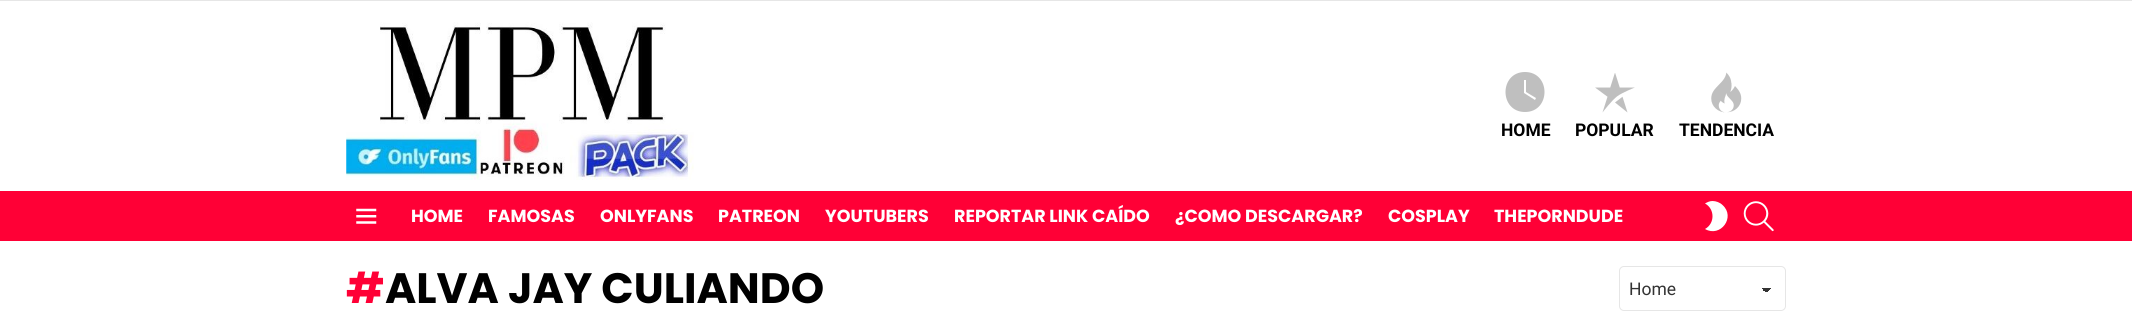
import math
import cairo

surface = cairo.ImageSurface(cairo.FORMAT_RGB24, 2132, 311)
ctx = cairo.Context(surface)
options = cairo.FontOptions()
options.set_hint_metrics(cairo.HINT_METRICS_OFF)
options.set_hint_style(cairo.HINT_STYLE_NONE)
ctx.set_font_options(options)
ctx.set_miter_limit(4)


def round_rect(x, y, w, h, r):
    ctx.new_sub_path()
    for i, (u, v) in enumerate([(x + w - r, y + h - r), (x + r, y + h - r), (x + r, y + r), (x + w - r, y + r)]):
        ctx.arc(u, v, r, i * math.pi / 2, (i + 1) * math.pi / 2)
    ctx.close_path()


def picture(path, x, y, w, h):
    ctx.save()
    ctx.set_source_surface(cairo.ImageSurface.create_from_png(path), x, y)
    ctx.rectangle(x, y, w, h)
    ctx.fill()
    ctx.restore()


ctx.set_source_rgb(1, 1, 1)
ctx.paint()
ctx.set_source_rgb(0.902, 0.902, 0.902)
ctx.rectangle(0, 0, 2132, 1)
ctx.fill()
picture("img1.png", 346, 22, 348, 158)
ctx.set_source_rgb(0.749, 0.749, 0.749)
ctx.new_path()
ctx.move_to(1525, 72)
ctx.curve_to(1499, 72, 1499, 112, 1525, 112)
ctx.curve_to(1551, 112, 1551, 72, 1525, 72)
ctx.close_path()
ctx.move_to(1535, 100)
ctx.line_to(1524, 93)
ctx.line_to(1524, 80)
ctx.line_to(1526, 80)
ctx.line_to(1526, 92)
ctx.line_to(1536, 98)
ctx.close_path()
ctx.fill()
ctx.select_font_face("Roboto", cairo.FONT_SLANT_NORMAL, cairo.FONT_WEIGHT_BOLD)
ctx.set_font_size(17.5)
ctx.set_source_rgb(0, 0, 0)
ctx.move_to(1501, 136)
ctx.show_text("HOME")
picture("img2.png", 1595, 73, 40, 40)
ctx.move_to(1575, 136)
ctx.show_text("POPULAR")
picture("img3.png", 1711, 72, 31, 41)
ctx.move_to(1679, 136)
ctx.show_text("TENDENCIA")
ctx.set_source_rgb(1, 0, 0.212)
ctx.rectangle(0, 191, 2132, 50)
ctx.fill()
picture("img4.png", 356, 208, 21, 16)
ctx.select_font_face("Poppins", cairo.FONT_SLANT_NORMAL, cairo.FONT_WEIGHT_BOLD)
ctx.set_source_rgb(1, 1, 1)
ctx.move_to(411, 222)
ctx.show_text("HOME")
ctx.move_to(488, 222)
ctx.show_text("FAMOSAS")
ctx.move_to(600, 222)
ctx.show_text("ONLYFANS")
ctx.move_to(718, 222)
ctx.show_text("PATREON")
ctx.move_to(825, 222)
ctx.show_text("YOUTUBERS")
ctx.move_to(954, 222)
ctx.show_text("REPORTAR LINK CAÍDO")
ctx.move_to(1175, 222)
ctx.show_text("¿COMO DESCARGAR?")
ctx.move_to(1388, 222)
ctx.show_text("COSPLAY")
ctx.move_to(1494, 222)
ctx.show_text("THEPORNDUDE")
ctx.new_path()
ctx.move_to(1712.5, 201)
ctx.curve_to(1710, 201, 1707.5, 202, 1705, 203.5)
ctx.curve_to(1715, 209, 1715, 223.5, 1705, 229)
ctx.curve_to(1720.5, 238, 1736, 217, 1722.5, 205)
ctx.curve_to(1720, 202.5, 1716, 201, 1712.5, 201)
ctx.close_path()
ctx.fill()
picture("img5.png", 1743, 201, 31, 31)
ctx.set_font_size(42.5)
ctx.set_source_rgb(1, 0, 0.212)
ctx.move_to(346, 303)
ctx.show_text("#")
ctx.set_source_rgb(0, 0, 0)
ctx.move_to(385, 303)
ctx.show_text("ALVA JAY CULIANDO")
gradient = cairo.LinearGradient(1767, 287, 1772, 293)
gradient.add_color_stop_rgba(0.5, 0.2, 0.2, 0.2, 1)
gradient.add_color_stop_rgba(0.5, 1, 1, 1, 1)
ctx.set_source(gradient)
ctx.rectangle(1766, 288, 7, 4)
ctx.fill()
gradient = cairo.LinearGradient(1760, 293, 1766, 287)
gradient.add_color_stop_rgba(0.5, 1, 1, 1, 1)
gradient.add_color_stop_rgba(0.5, 0.2, 0.2, 0.2, 1)
ctx.set_source(gradient)
ctx.rectangle(1760, 288, 6, 4)
ctx.fill()
round_rect(1619.5, 266.5, 166, 44, 4.5)
ctx.set_source_rgb(0.902, 0.902, 0.902)
ctx.set_line_width(1)
ctx.stroke()
ctx.select_font_face("Roboto")
ctx.set_font_size(17.5)
ctx.set_source_rgb(0.2, 0.2, 0.2)
ctx.move_to(1629, 295)
ctx.show_text("Home")
surface.write_to_png("page.png")
